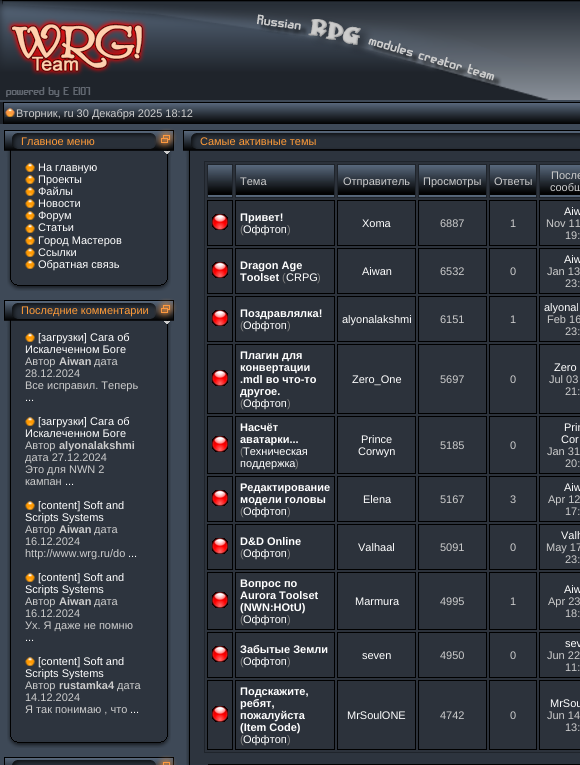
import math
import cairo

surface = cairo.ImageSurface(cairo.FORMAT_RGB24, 580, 765)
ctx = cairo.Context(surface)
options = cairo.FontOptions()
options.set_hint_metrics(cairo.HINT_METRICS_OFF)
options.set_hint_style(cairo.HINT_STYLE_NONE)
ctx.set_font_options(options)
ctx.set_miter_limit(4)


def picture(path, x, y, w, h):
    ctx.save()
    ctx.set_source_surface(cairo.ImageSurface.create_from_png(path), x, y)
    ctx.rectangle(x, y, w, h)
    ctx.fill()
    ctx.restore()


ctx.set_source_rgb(0.243, 0.286, 0.341)
ctx.paint()
picture("img1.png", 0, 0, 550, 100)
picture("img2.png", 550, 0, 30, 100)
picture("img3.png", 0, 102, 16, 22)
picture("img4.png", 16, 102, 564, 22)
ctx.select_font_face("Liberation Sans")
ctx.set_font_size(11)
ctx.set_source_rgb(0.8, 0.8, 0.8)
ctx.move_to(16, 117)
ctx.show_text("Вторник, ru 30 Декабря 2025 18:12")
picture("img5.png", 4, 130, 17, 27)
picture("img6.png", 21, 130, 128, 27)
ctx.set_source_rgb(1, 0.608, 0.22)
ctx.move_to(21, 145)
ctx.show_text("Главное меню")
picture("img7.png", 149, 128, 28, 29)
picture("img8.png", 7, 157, 14, 118)
ctx.set_source_rgb(0.176, 0.204, 0.243)
ctx.rectangle(21, 157, 128, 118)
ctx.fill()
picture("img9.png", 25, 163, 10, 9)
ctx.set_source_rgb(1, 1, 1)
ctx.move_to(38, 171)
ctx.show_text("На главную")
picture("img9.png", 25, 175, 10, 9)
ctx.move_to(38, 183)
ctx.show_text("Проекты")
picture("img9.png", 25, 187, 10, 9)
ctx.move_to(38, 195)
ctx.show_text("Файлы")
picture("img9.png", 25, 199, 10, 9)
ctx.move_to(38, 207)
ctx.show_text("Новости")
picture("img9.png", 25, 211, 10, 9)
ctx.move_to(38, 219)
ctx.show_text("Форум")
picture("img9.png", 25, 224, 10, 9)
ctx.move_to(38, 231)
ctx.show_text("Статьи")
picture("img9.png", 25, 236, 10, 9)
ctx.move_to(38, 244)
ctx.show_text("Город Мастеров")
picture("img9.png", 25, 248, 10, 9)
ctx.move_to(38, 256)
ctx.show_text("Ссылки")
picture("img9.png", 25, 260, 10, 9)
ctx.move_to(38, 268)
ctx.show_text("Обратная связь")
picture("img10.png", 149, 157, 22, 118)
picture("img11.png", 7, 275, 14, 16)
picture("img12.png", 21, 275, 128, 16)
picture("img13.png", 149, 275, 22, 16)
picture("img5.png", 4, 300, 17, 27)
picture("img6.png", 21, 300, 128, 27)
ctx.set_source_rgb(1, 0.608, 0.22)
ctx.move_to(21, 314)
ctx.show_text("Последние комментарии")
picture("img7.png", 149, 298, 28, 29)
picture("img14.png", 7, 327, 14, 405)
ctx.set_source_rgb(0.176, 0.204, 0.243)
ctx.rectangle(21, 327, 128, 405)
ctx.fill()
picture("img9.png", 25, 333, 10, 9)
ctx.set_source_rgb(1, 1, 1)
ctx.move_to(38, 341)
ctx.show_text("[загрузки] Сага об")
ctx.move_to(25, 353)
ctx.show_text("Искалеченном Боге")
ctx.set_source_rgb(0.8, 0.8, 0.8)
ctx.move_to(25, 365)
ctx.show_text("Автор")
ctx.select_font_face("Liberation Sans", cairo.FONT_SLANT_NORMAL, cairo.FONT_WEIGHT_BOLD)
ctx.move_to(59, 365)
ctx.show_text("Aiwan")
ctx.select_font_face("Liberation Sans")
ctx.move_to(94, 365)
ctx.show_text("дата")
ctx.move_to(25, 377)
ctx.show_text("28.12.2024")
ctx.move_to(25, 389)
ctx.show_text("Все исправил. Теперь")
ctx.set_source_rgb(1, 1, 1)
ctx.move_to(25, 401)
ctx.show_text("...")
picture("img9.png", 25, 417, 10, 9)
ctx.move_to(38, 425)
ctx.show_text("[загрузки] Сага об")
ctx.move_to(25, 437)
ctx.show_text("Искалеченном Боге")
ctx.set_source_rgb(0.8, 0.8, 0.8)
ctx.move_to(25, 449)
ctx.show_text("Автор")
ctx.select_font_face("Liberation Sans", cairo.FONT_SLANT_NORMAL, cairo.FONT_WEIGHT_BOLD)
ctx.move_to(59, 449)
ctx.show_text("alyonalakshmi")
ctx.select_font_face("Liberation Sans")
ctx.move_to(25, 461)
ctx.show_text("дата 27.12.2024")
ctx.move_to(25, 473)
ctx.show_text("Это для NWN 2")
ctx.move_to(25, 485)
ctx.show_text("кампан")
ctx.set_source_rgb(1, 1, 1)
ctx.move_to(65, 485)
ctx.show_text("...")
picture("img9.png", 25, 501, 10, 9)
ctx.move_to(38, 509)
ctx.show_text("[content] Soft and")
ctx.move_to(25, 521)
ctx.show_text("Scripts Systems")
ctx.set_source_rgb(0.8, 0.8, 0.8)
ctx.move_to(25, 533)
ctx.show_text("Автор")
ctx.select_font_face("Liberation Sans", cairo.FONT_SLANT_NORMAL, cairo.FONT_WEIGHT_BOLD)
ctx.move_to(59, 533)
ctx.show_text("Aiwan")
ctx.select_font_face("Liberation Sans")
ctx.move_to(94, 533)
ctx.show_text("дата")
ctx.move_to(25, 545)
ctx.show_text("16.12.2024")
ctx.move_to(25, 557)
ctx.show_text("http://www.wrg.ru/do")
ctx.set_source_rgb(1, 1, 1)
ctx.move_to(128, 557)
ctx.show_text("...")
picture("img9.png", 25, 573, 10, 9)
ctx.move_to(38, 581)
ctx.show_text("[content] Soft and")
ctx.move_to(25, 593)
ctx.show_text("Scripts Systems")
ctx.set_source_rgb(0.8, 0.8, 0.8)
ctx.move_to(25, 605)
ctx.show_text("Автор")
ctx.select_font_face("Liberation Sans", cairo.FONT_SLANT_NORMAL, cairo.FONT_WEIGHT_BOLD)
ctx.move_to(59, 605)
ctx.show_text("Aiwan")
ctx.select_font_face("Liberation Sans")
ctx.move_to(94, 605)
ctx.show_text("дата")
ctx.move_to(25, 617)
ctx.show_text("16.12.2024")
ctx.move_to(25, 629)
ctx.show_text("Ух. Я даже не помню")
ctx.set_source_rgb(1, 1, 1)
ctx.move_to(25, 641)
ctx.show_text("...")
picture("img9.png", 25, 657, 10, 9)
ctx.move_to(38, 665)
ctx.show_text("[content] Soft and")
ctx.move_to(25, 677)
ctx.show_text("Scripts Systems")
ctx.set_source_rgb(0.8, 0.8, 0.8)
ctx.move_to(25, 689)
ctx.show_text("Автор")
ctx.select_font_face("Liberation Sans", cairo.FONT_SLANT_NORMAL, cairo.FONT_WEIGHT_BOLD)
ctx.move_to(59, 689)
ctx.show_text("rustamka4")
ctx.select_font_face("Liberation Sans")
ctx.move_to(117, 689)
ctx.show_text("дата")
ctx.move_to(25, 701)
ctx.show_text("14.12.2024")
ctx.move_to(25, 713)
ctx.show_text("Я так понимаю , что")
ctx.set_source_rgb(1, 1, 1)
ctx.move_to(130, 713)
ctx.show_text("...")
picture("img15.png", 149, 327, 22, 405)
picture("img11.png", 7, 732, 14, 16)
picture("img12.png", 21, 732, 128, 16)
picture("img13.png", 149, 732, 22, 16)
picture("img16.png", 4, 757, 17, 8)
picture("img17.png", 21, 757, 128, 8)
picture("img18.png", 149, 755, 28, 10)
picture("img5.png", 183, 130, 17, 27)
picture("img19.png", 200, 130, 380, 27)
ctx.set_source_rgb(1, 0.608, 0.22)
ctx.move_to(200, 145)
ctx.show_text("Самые активные темы")
picture("img20.png", 186, 157, 14, 608)
ctx.set_source_rgb(0.176, 0.204, 0.243)
ctx.rectangle(200, 157, 380, 608)
ctx.fill()
ctx.set_source_rgb(0.173, 0.196, 0.231)
ctx.rectangle(204.5, 161.5, 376, 591)
ctx.fill_preserve()
ctx.set_source_rgb(0.122, 0.141, 0.169)
ctx.set_line_width(1)
ctx.stroke()
picture("img21.png", 208, 165, 24, 32)
ctx.rectangle(207.5, 164.5, 25, 33)
ctx.stroke()
picture("img22.png", 236, 165, 98, 32)
ctx.rectangle(235.5, 164.5, 99, 33)
ctx.stroke()
ctx.set_source_rgb(0.8, 0.8, 0.8)
ctx.move_to(240, 185)
ctx.show_text("Тема")
picture("img23.png", 338, 165, 77, 32)
ctx.rectangle(337.5, 164.5, 78, 33)
ctx.set_source_rgb(0.122, 0.141, 0.169)
ctx.stroke()
ctx.set_source_rgb(0.8, 0.8, 0.8)
ctx.move_to(343, 185)
ctx.show_text("Отправитель")
picture("img24.png", 419, 165, 67, 32)
ctx.rectangle(418.5, 164.5, 68, 33)
ctx.set_source_rgb(0.122, 0.141, 0.169)
ctx.stroke()
ctx.set_source_rgb(0.8, 0.8, 0.8)
ctx.move_to(423, 185)
ctx.show_text("Просмотры")
picture("img25.png", 490, 165, 46, 32)
ctx.rectangle(489.5, 164.5, 47, 33)
ctx.set_source_rgb(0.122, 0.141, 0.169)
ctx.stroke()
ctx.set_source_rgb(0.8, 0.8, 0.8)
ctx.move_to(494, 185)
ctx.show_text("Ответы")
picture("img26.png", 540, 165, 40, 32)
ctx.rectangle(539.5, 164.5, 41, 33)
ctx.set_source_rgb(0.122, 0.141, 0.169)
ctx.stroke()
ctx.set_source_rgb(0.8, 0.8, 0.8)
ctx.move_to(551, 179)
ctx.show_text("После")
ctx.move_to(550, 191)
ctx.show_text("сообщ")
ctx.rectangle(207.5, 200.5, 25, 45)
ctx.set_source_rgb(0, 0, 0)
ctx.stroke()
picture("img27.png", 212, 214, 16, 16)
ctx.rectangle(235.5, 200.5, 99, 45)
ctx.stroke()
ctx.select_font_face("Liberation Sans", cairo.FONT_SLANT_NORMAL, cairo.FONT_WEIGHT_BOLD)
ctx.set_source_rgb(1, 1, 1)
ctx.move_to(240, 221)
ctx.show_text("Привет!")
ctx.select_font_face("Liberation Sans")
ctx.set_source_rgb(0.502, 0.502, 0.502)
ctx.move_to(240, 233)
ctx.show_text("(")
ctx.set_source_rgb(1, 1, 1)
ctx.move_to(243, 233)
ctx.show_text("Оффтоп")
ctx.set_source_rgb(0.502, 0.502, 0.502)
ctx.move_to(287, 233)
ctx.show_text(")")
ctx.rectangle(337.5, 200.5, 78, 45)
ctx.set_source_rgb(0, 0, 0)
ctx.stroke()
ctx.set_source_rgb(1, 1, 1)
ctx.move_to(362, 227)
ctx.show_text("Xoma")
ctx.rectangle(418.5, 200.5, 68, 45)
ctx.set_source_rgb(0, 0, 0)
ctx.stroke()
ctx.set_source_rgb(0.8, 0.8, 0.8)
ctx.move_to(440, 227)
ctx.show_text("6887")
ctx.rectangle(489.5, 200.5, 47, 45)
ctx.set_source_rgb(0, 0, 0)
ctx.stroke()
ctx.set_source_rgb(0.8, 0.8, 0.8)
ctx.move_to(510, 227)
ctx.show_text("1")
ctx.rectangle(539.5, 200.5, 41, 45)
ctx.set_source_rgb(0, 0, 0)
ctx.stroke()
ctx.set_source_rgb(1, 1, 1)
ctx.move_to(564, 215)
ctx.show_text("Aiw")
ctx.set_source_rgb(0.8, 0.8, 0.8)
ctx.move_to(546, 227)
ctx.show_text("Nov 11")
ctx.move_to(565, 239)
ctx.show_text("19:")
ctx.rectangle(207.5, 248.5, 25, 45)
ctx.set_source_rgb(0, 0, 0)
ctx.stroke()
picture("img27.png", 212, 262, 16, 16)
ctx.rectangle(235.5, 248.5, 99, 45)
ctx.stroke()
ctx.select_font_face("Liberation Sans", cairo.FONT_SLANT_NORMAL, cairo.FONT_WEIGHT_BOLD)
ctx.set_source_rgb(1, 1, 1)
ctx.move_to(240, 269)
ctx.show_text("Dragon Age")
ctx.move_to(240, 281)
ctx.show_text("Toolset")
ctx.select_font_face("Liberation Sans")
ctx.set_source_rgb(0.502, 0.502, 0.502)
ctx.move_to(282, 281)
ctx.show_text("(")
ctx.set_source_rgb(1, 1, 1)
ctx.move_to(286, 281)
ctx.show_text("CRPG")
ctx.set_source_rgb(0.502, 0.502, 0.502)
ctx.move_to(317, 281)
ctx.show_text(")")
ctx.rectangle(337.5, 248.5, 78, 45)
ctx.set_source_rgb(0, 0, 0)
ctx.stroke()
ctx.set_source_rgb(1, 1, 1)
ctx.move_to(362, 275)
ctx.show_text("Aiwan")
ctx.rectangle(418.5, 248.5, 68, 45)
ctx.set_source_rgb(0, 0, 0)
ctx.stroke()
ctx.set_source_rgb(0.8, 0.8, 0.8)
ctx.move_to(440, 275)
ctx.show_text("6532")
ctx.rectangle(489.5, 248.5, 47, 45)
ctx.set_source_rgb(0, 0, 0)
ctx.stroke()
ctx.set_source_rgb(0.8, 0.8, 0.8)
ctx.move_to(510, 275)
ctx.show_text("0")
ctx.rectangle(539.5, 248.5, 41, 45)
ctx.set_source_rgb(0, 0, 0)
ctx.stroke()
ctx.set_source_rgb(1, 1, 1)
ctx.move_to(564, 263)
ctx.show_text("Aiw")
ctx.set_source_rgb(0.8, 0.8, 0.8)
ctx.move_to(547, 275)
ctx.show_text("Jan 13")
ctx.move_to(565, 287)
ctx.show_text("23:")
ctx.rectangle(207.5, 296.5, 25, 45)
ctx.set_source_rgb(0, 0, 0)
ctx.stroke()
picture("img27.png", 212, 310, 16, 16)
ctx.rectangle(235.5, 296.5, 99, 45)
ctx.stroke()
ctx.select_font_face("Liberation Sans", cairo.FONT_SLANT_NORMAL, cairo.FONT_WEIGHT_BOLD)
ctx.set_source_rgb(1, 1, 1)
ctx.move_to(240, 317)
ctx.show_text("Поздравлялка!")
ctx.select_font_face("Liberation Sans")
ctx.set_source_rgb(0.502, 0.502, 0.502)
ctx.move_to(240, 329)
ctx.show_text("(")
ctx.set_source_rgb(1, 1, 1)
ctx.move_to(243, 329)
ctx.show_text("Оффтоп")
ctx.set_source_rgb(0.502, 0.502, 0.502)
ctx.move_to(287, 329)
ctx.show_text(")")
ctx.rectangle(337.5, 296.5, 78, 45)
ctx.set_source_rgb(0, 0, 0)
ctx.stroke()
ctx.set_source_rgb(1, 1, 1)
ctx.move_to(342, 323)
ctx.show_text("alyonalakshmi")
ctx.rectangle(418.5, 296.5, 68, 45)
ctx.set_source_rgb(0, 0, 0)
ctx.stroke()
ctx.set_source_rgb(0.8, 0.8, 0.8)
ctx.move_to(440, 323)
ctx.show_text("6151")
ctx.rectangle(489.5, 296.5, 47, 45)
ctx.set_source_rgb(0, 0, 0)
ctx.stroke()
ctx.set_source_rgb(0.8, 0.8, 0.8)
ctx.move_to(510, 323)
ctx.show_text("1")
ctx.rectangle(539.5, 296.5, 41, 45)
ctx.set_source_rgb(0, 0, 0)
ctx.stroke()
ctx.set_source_rgb(1, 1, 1)
ctx.move_to(544, 311)
ctx.show_text("alyonal")
ctx.set_source_rgb(0.8, 0.8, 0.8)
ctx.move_to(547, 323)
ctx.show_text("Feb 16")
ctx.move_to(565, 335)
ctx.show_text("23:")
ctx.rectangle(207.5, 344.5, 25, 69)
ctx.set_source_rgb(0, 0, 0)
ctx.stroke()
picture("img27.png", 212, 370, 16, 16)
ctx.rectangle(235.5, 344.5, 99, 69)
ctx.stroke()
ctx.select_font_face("Liberation Sans", cairo.FONT_SLANT_NORMAL, cairo.FONT_WEIGHT_BOLD)
ctx.set_source_rgb(1, 1, 1)
ctx.move_to(240, 359)
ctx.show_text("Плагин для")
ctx.move_to(240, 371)
ctx.show_text("конвертации")
ctx.move_to(240, 383)
ctx.show_text(".mdl во что-то")
ctx.move_to(240, 395)
ctx.show_text("другое.")
ctx.select_font_face("Liberation Sans")
ctx.set_source_rgb(0.502, 0.502, 0.502)
ctx.move_to(240, 407)
ctx.show_text("(")
ctx.set_source_rgb(1, 1, 1)
ctx.move_to(243, 407)
ctx.show_text("Оффтоп")
ctx.set_source_rgb(0.502, 0.502, 0.502)
ctx.move_to(287, 407)
ctx.show_text(")")
ctx.rectangle(337.5, 344.5, 78, 69)
ctx.set_source_rgb(0, 0, 0)
ctx.stroke()
ctx.set_source_rgb(1, 1, 1)
ctx.move_to(352, 383)
ctx.show_text("Zero_One")
ctx.rectangle(418.5, 344.5, 68, 69)
ctx.set_source_rgb(0, 0, 0)
ctx.stroke()
ctx.set_source_rgb(0.8, 0.8, 0.8)
ctx.move_to(440, 383)
ctx.show_text("5697")
ctx.rectangle(489.5, 344.5, 47, 69)
ctx.set_source_rgb(0, 0, 0)
ctx.stroke()
ctx.set_source_rgb(0.8, 0.8, 0.8)
ctx.move_to(510, 383)
ctx.show_text("0")
ctx.rectangle(539.5, 344.5, 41, 69)
ctx.set_source_rgb(0, 0, 0)
ctx.stroke()
ctx.set_source_rgb(1, 1, 1)
ctx.move_to(554, 371)
ctx.show_text("Zero")
ctx.set_source_rgb(0.8, 0.8, 0.8)
ctx.move_to(549, 383)
ctx.show_text("Jul 03")
ctx.move_to(565, 395)
ctx.show_text("21:")
ctx.rectangle(207.5, 416.5, 25, 57)
ctx.set_source_rgb(0, 0, 0)
ctx.stroke()
picture("img27.png", 212, 436, 16, 16)
ctx.rectangle(235.5, 416.5, 99, 57)
ctx.stroke()
ctx.select_font_face("Liberation Sans", cairo.FONT_SLANT_NORMAL, cairo.FONT_WEIGHT_BOLD)
ctx.set_source_rgb(1, 1, 1)
ctx.move_to(240, 431)
ctx.show_text("Насчёт")
ctx.move_to(240, 443)
ctx.show_text("аватарки...")
ctx.select_font_face("Liberation Sans")
ctx.set_source_rgb(0.502, 0.502, 0.502)
ctx.move_to(240, 455)
ctx.show_text("(")
ctx.set_source_rgb(1, 1, 1)
ctx.move_to(243, 455)
ctx.show_text("Техническая")
ctx.move_to(240, 467)
ctx.show_text("поддержка")
ctx.set_source_rgb(0.502, 0.502, 0.502)
ctx.move_to(295, 467)
ctx.show_text(")")
ctx.rectangle(337.5, 416.5, 78, 57)
ctx.set_source_rgb(0, 0, 0)
ctx.stroke()
ctx.set_source_rgb(1, 1, 1)
ctx.move_to(361, 443)
ctx.show_text("Prince")
ctx.move_to(358, 455)
ctx.show_text("Corwyn")
ctx.rectangle(418.5, 416.5, 68, 57)
ctx.set_source_rgb(0, 0, 0)
ctx.stroke()
ctx.set_source_rgb(0.8, 0.8, 0.8)
ctx.move_to(440, 449)
ctx.show_text("5185")
ctx.rectangle(489.5, 416.5, 47, 57)
ctx.set_source_rgb(0, 0, 0)
ctx.stroke()
ctx.set_source_rgb(0.8, 0.8, 0.8)
ctx.move_to(510, 449)
ctx.show_text("0")
ctx.rectangle(539.5, 416.5, 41, 57)
ctx.set_source_rgb(0, 0, 0)
ctx.stroke()
ctx.set_source_rgb(1, 1, 1)
ctx.move_to(564, 431)
ctx.show_text("Prin")
ctx.move_to(561, 443)
ctx.show_text("Cor")
ctx.set_source_rgb(0.8, 0.8, 0.8)
ctx.move_to(547, 455)
ctx.show_text("Jan 31")
ctx.move_to(565, 467)
ctx.show_text("20:")
ctx.rectangle(207.5, 476.5, 25, 45)
ctx.set_source_rgb(0, 0, 0)
ctx.stroke()
picture("img27.png", 212, 490, 16, 16)
ctx.rectangle(235.5, 476.5, 99, 45)
ctx.stroke()
ctx.select_font_face("Liberation Sans", cairo.FONT_SLANT_NORMAL, cairo.FONT_WEIGHT_BOLD)
ctx.set_source_rgb(1, 1, 1)
ctx.move_to(240, 491)
ctx.show_text("Редактирование")
ctx.move_to(240, 503)
ctx.show_text("модели головы")
ctx.select_font_face("Liberation Sans")
ctx.set_source_rgb(0.502, 0.502, 0.502)
ctx.move_to(240, 515)
ctx.show_text("(")
ctx.set_source_rgb(1, 1, 1)
ctx.move_to(243, 515)
ctx.show_text("Оффтоп")
ctx.set_source_rgb(0.502, 0.502, 0.502)
ctx.move_to(287, 515)
ctx.show_text(")")
ctx.rectangle(337.5, 476.5, 78, 45)
ctx.set_source_rgb(0, 0, 0)
ctx.stroke()
ctx.set_source_rgb(1, 1, 1)
ctx.move_to(363, 503)
ctx.show_text("Elena")
ctx.rectangle(418.5, 476.5, 68, 45)
ctx.set_source_rgb(0, 0, 0)
ctx.stroke()
ctx.set_source_rgb(0.8, 0.8, 0.8)
ctx.move_to(440, 503)
ctx.show_text("5167")
ctx.rectangle(489.5, 476.5, 47, 45)
ctx.set_source_rgb(0, 0, 0)
ctx.stroke()
ctx.set_source_rgb(0.8, 0.8, 0.8)
ctx.move_to(510, 503)
ctx.show_text("3")
ctx.rectangle(539.5, 476.5, 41, 45)
ctx.set_source_rgb(0, 0, 0)
ctx.stroke()
ctx.set_source_rgb(1, 1, 1)
ctx.move_to(564, 491)
ctx.show_text("Aiw")
ctx.set_source_rgb(0.8, 0.8, 0.8)
ctx.move_to(548, 503)
ctx.show_text("Apr 12")
ctx.move_to(565, 515)
ctx.show_text("17:")
ctx.rectangle(207.5, 524.5, 25, 45)
ctx.set_source_rgb(0, 0, 0)
ctx.stroke()
picture("img27.png", 212, 538, 16, 16)
ctx.rectangle(235.5, 524.5, 99, 45)
ctx.stroke()
ctx.select_font_face("Liberation Sans", cairo.FONT_SLANT_NORMAL, cairo.FONT_WEIGHT_BOLD)
ctx.set_source_rgb(1, 1, 1)
ctx.move_to(240, 545)
ctx.show_text("D&D Online")
ctx.select_font_face("Liberation Sans")
ctx.set_source_rgb(0.502, 0.502, 0.502)
ctx.move_to(240, 557)
ctx.show_text("(")
ctx.set_source_rgb(1, 1, 1)
ctx.move_to(243, 557)
ctx.show_text("Оффтоп")
ctx.set_source_rgb(0.502, 0.502, 0.502)
ctx.move_to(287, 557)
ctx.show_text(")")
ctx.rectangle(337.5, 524.5, 78, 45)
ctx.set_source_rgb(0, 0, 0)
ctx.stroke()
ctx.set_source_rgb(1, 1, 1)
ctx.move_to(358, 551)
ctx.show_text("Valhaal")
ctx.rectangle(418.5, 524.5, 68, 45)
ctx.set_source_rgb(0, 0, 0)
ctx.stroke()
ctx.set_source_rgb(0.8, 0.8, 0.8)
ctx.move_to(440, 551)
ctx.show_text("5091")
ctx.rectangle(489.5, 524.5, 47, 45)
ctx.set_source_rgb(0, 0, 0)
ctx.stroke()
ctx.set_source_rgb(0.8, 0.8, 0.8)
ctx.move_to(510, 551)
ctx.show_text("0")
ctx.rectangle(539.5, 524.5, 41, 45)
ctx.set_source_rgb(0, 0, 0)
ctx.stroke()
ctx.set_source_rgb(1, 1, 1)
ctx.move_to(561, 539)
ctx.show_text("Valh")
ctx.set_source_rgb(0.8, 0.8, 0.8)
ctx.move_to(546, 551)
ctx.show_text("May 17")
ctx.move_to(565, 563)
ctx.show_text("23:")
ctx.rectangle(207.5, 572.5, 25, 57)
ctx.set_source_rgb(0, 0, 0)
ctx.stroke()
picture("img27.png", 212, 592, 16, 16)
ctx.rectangle(235.5, 572.5, 99, 57)
ctx.stroke()
ctx.select_font_face("Liberation Sans", cairo.FONT_SLANT_NORMAL, cairo.FONT_WEIGHT_BOLD)
ctx.set_source_rgb(1, 1, 1)
ctx.move_to(240, 587)
ctx.show_text("Вопрос по")
ctx.move_to(240, 599)
ctx.show_text("Aurora Toolset")
ctx.move_to(240, 611)
ctx.show_text("(NWN:HOtU)")
ctx.select_font_face("Liberation Sans")
ctx.set_source_rgb(0.502, 0.502, 0.502)
ctx.move_to(240, 623)
ctx.show_text("(")
ctx.set_source_rgb(1, 1, 1)
ctx.move_to(243, 623)
ctx.show_text("Оффтоп")
ctx.set_source_rgb(0.502, 0.502, 0.502)
ctx.move_to(287, 623)
ctx.show_text(")")
ctx.rectangle(337.5, 572.5, 78, 57)
ctx.set_source_rgb(0, 0, 0)
ctx.stroke()
ctx.set_source_rgb(1, 1, 1)
ctx.move_to(355, 605)
ctx.show_text("Marmura")
ctx.rectangle(418.5, 572.5, 68, 57)
ctx.set_source_rgb(0, 0, 0)
ctx.stroke()
ctx.set_source_rgb(0.8, 0.8, 0.8)
ctx.move_to(440, 605)
ctx.show_text("4995")
ctx.rectangle(489.5, 572.5, 47, 57)
ctx.set_source_rgb(0, 0, 0)
ctx.stroke()
ctx.set_source_rgb(0.8, 0.8, 0.8)
ctx.move_to(510, 605)
ctx.show_text("1")
ctx.rectangle(539.5, 572.5, 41, 57)
ctx.set_source_rgb(0, 0, 0)
ctx.stroke()
ctx.set_source_rgb(1, 1, 1)
ctx.move_to(564, 593)
ctx.show_text("Aiw")
ctx.set_source_rgb(0.8, 0.8, 0.8)
ctx.move_to(548, 605)
ctx.show_text("Apr 23")
ctx.move_to(565, 617)
ctx.show_text("18:")
ctx.rectangle(207.5, 632.5, 25, 45)
ctx.set_source_rgb(0, 0, 0)
ctx.stroke()
picture("img27.png", 212, 646, 16, 16)
ctx.rectangle(235.5, 632.5, 99, 45)
ctx.stroke()
ctx.select_font_face("Liberation Sans", cairo.FONT_SLANT_NORMAL, cairo.FONT_WEIGHT_BOLD)
ctx.set_source_rgb(1, 1, 1)
ctx.move_to(240, 653)
ctx.show_text("Забытые Земли")
ctx.select_font_face("Liberation Sans")
ctx.set_source_rgb(0.502, 0.502, 0.502)
ctx.move_to(240, 665)
ctx.show_text("(")
ctx.set_source_rgb(1, 1, 1)
ctx.move_to(243, 665)
ctx.show_text("Оффтоп")
ctx.set_source_rgb(0.502, 0.502, 0.502)
ctx.move_to(287, 665)
ctx.show_text(")")
ctx.rectangle(337.5, 632.5, 78, 45)
ctx.set_source_rgb(0, 0, 0)
ctx.stroke()
ctx.set_source_rgb(1, 1, 1)
ctx.move_to(362, 659)
ctx.show_text("seven")
ctx.rectangle(418.5, 632.5, 68, 45)
ctx.set_source_rgb(0, 0, 0)
ctx.stroke()
ctx.set_source_rgb(0.8, 0.8, 0.8)
ctx.move_to(440, 659)
ctx.show_text("4950")
ctx.rectangle(489.5, 632.5, 47, 45)
ctx.set_source_rgb(0, 0, 0)
ctx.stroke()
ctx.set_source_rgb(0.8, 0.8, 0.8)
ctx.move_to(510, 659)
ctx.show_text("0")
ctx.rectangle(539.5, 632.5, 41, 45)
ctx.set_source_rgb(0, 0, 0)
ctx.stroke()
ctx.set_source_rgb(1, 1, 1)
ctx.move_to(565, 647)
ctx.show_text("sev")
ctx.set_source_rgb(0.8, 0.8, 0.8)
ctx.move_to(547, 659)
ctx.show_text("Jun 22")
ctx.move_to(565, 671)
ctx.show_text("11:")
ctx.rectangle(207.5, 680.5, 25, 69)
ctx.set_source_rgb(0, 0, 0)
ctx.stroke()
picture("img27.png", 212, 706, 16, 16)
ctx.rectangle(235.5, 680.5, 99, 69)
ctx.stroke()
ctx.select_font_face("Liberation Sans", cairo.FONT_SLANT_NORMAL, cairo.FONT_WEIGHT_BOLD)
ctx.set_source_rgb(1, 1, 1)
ctx.move_to(240, 695)
ctx.show_text("Подскажите,")
ctx.move_to(240, 707)
ctx.show_text("ребят,")
ctx.move_to(240, 719)
ctx.show_text("пожалуйста")
ctx.move_to(240, 731)
ctx.show_text("(Item Code)")
ctx.select_font_face("Liberation Sans")
ctx.set_source_rgb(0.502, 0.502, 0.502)
ctx.move_to(240, 743)
ctx.show_text("(")
ctx.set_source_rgb(1, 1, 1)
ctx.move_to(243, 743)
ctx.show_text("Оффтоп")
ctx.set_source_rgb(0.502, 0.502, 0.502)
ctx.move_to(287, 743)
ctx.show_text(")")
ctx.rectangle(337.5, 680.5, 78, 69)
ctx.set_source_rgb(0, 0, 0)
ctx.stroke()
ctx.set_source_rgb(1, 1, 1)
ctx.move_to(347, 719)
ctx.show_text("MrSoulONE")
ctx.rectangle(418.5, 680.5, 68, 69)
ctx.set_source_rgb(0, 0, 0)
ctx.stroke()
ctx.set_source_rgb(0.8, 0.8, 0.8)
ctx.move_to(440, 719)
ctx.show_text("4742")
ctx.rectangle(489.5, 680.5, 47, 69)
ctx.set_source_rgb(0, 0, 0)
ctx.stroke()
ctx.set_source_rgb(0.8, 0.8, 0.8)
ctx.move_to(510, 719)
ctx.show_text("0")
ctx.rectangle(539.5, 680.5, 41, 69)
ctx.set_source_rgb(0, 0, 0)
ctx.stroke()
ctx.set_source_rgb(1, 1, 1)
ctx.move_to(550, 707)
ctx.show_text("MrSou")
ctx.set_source_rgb(0.8, 0.8, 0.8)
ctx.move_to(547, 719)
ctx.show_text("Jun 14")
ctx.move_to(565, 731)
ctx.show_text("13:")
ctx.rectangle(209, 765, 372, 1)
ctx.set_source_rgb(0, 0, 0)
ctx.set_line_width(2)
ctx.stroke()
surface.write_to_png("page.png")
